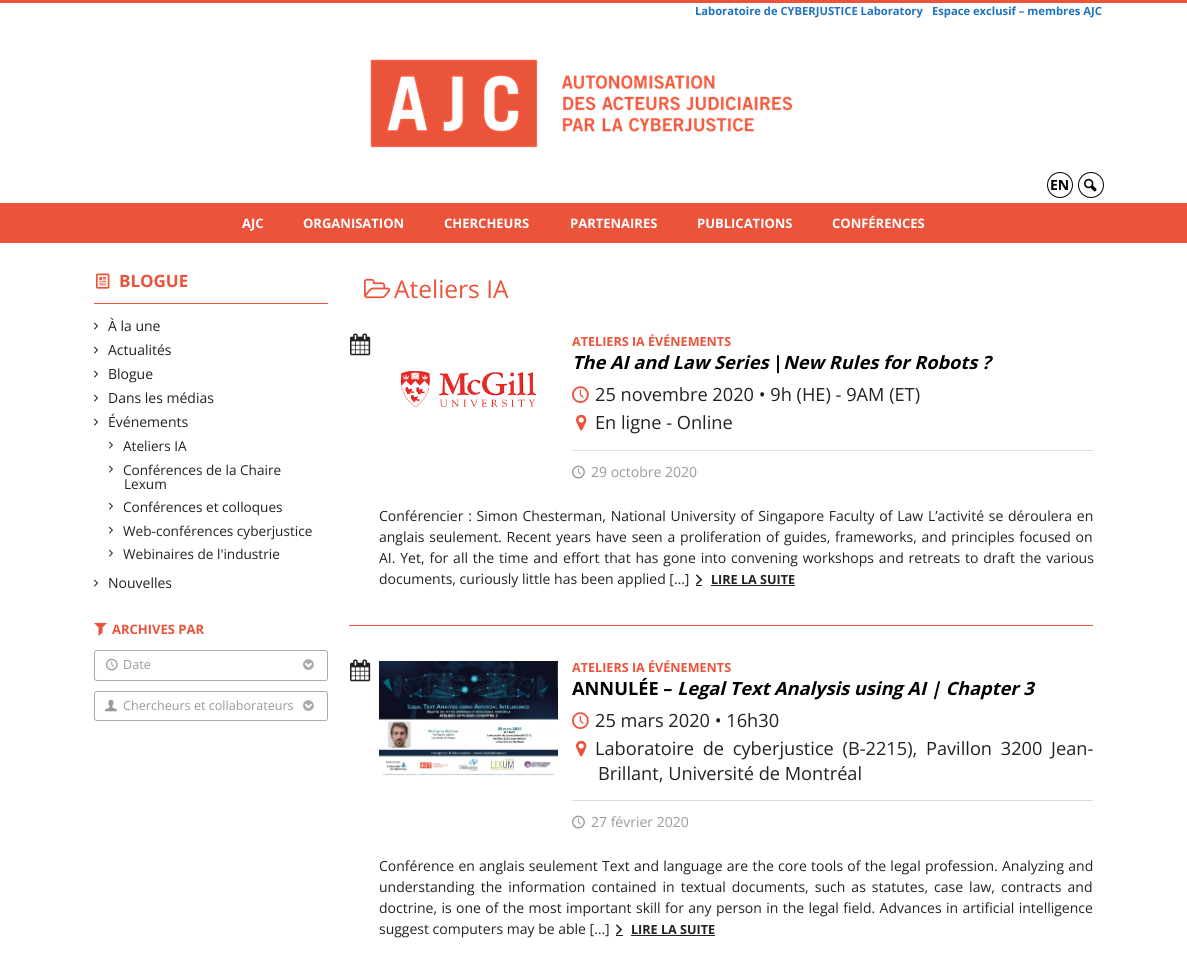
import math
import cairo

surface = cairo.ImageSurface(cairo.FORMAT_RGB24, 1187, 970)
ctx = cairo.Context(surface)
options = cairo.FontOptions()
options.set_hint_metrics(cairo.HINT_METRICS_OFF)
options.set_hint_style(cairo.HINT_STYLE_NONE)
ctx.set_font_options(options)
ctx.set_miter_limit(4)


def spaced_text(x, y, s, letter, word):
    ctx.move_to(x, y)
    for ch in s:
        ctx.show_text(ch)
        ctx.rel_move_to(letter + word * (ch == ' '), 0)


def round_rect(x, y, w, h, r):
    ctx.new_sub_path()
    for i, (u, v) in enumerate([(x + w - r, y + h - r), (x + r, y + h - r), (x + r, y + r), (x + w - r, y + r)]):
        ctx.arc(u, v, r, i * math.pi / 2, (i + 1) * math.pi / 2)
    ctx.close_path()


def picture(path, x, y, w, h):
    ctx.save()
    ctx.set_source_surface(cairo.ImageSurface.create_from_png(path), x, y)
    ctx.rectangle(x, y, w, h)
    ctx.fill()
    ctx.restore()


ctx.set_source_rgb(1, 1, 1)
ctx.paint()
ctx.set_source_rgb(0.918, 0.329, 0.227)
ctx.rectangle(0, 0, 1187, 3)
ctx.fill()
ctx.select_font_face("Open Sans", cairo.FONT_SLANT_NORMAL, cairo.FONT_WEIGHT_BOLD)
ctx.set_font_size(11.2)
ctx.set_source_rgb(0.118, 0.451, 0.745)
ctx.move_to(695, 15)
ctx.show_text("Laboratoire de CYBERJUSTICE Laboratory")
ctx.move_to(932, 15)
ctx.show_text("Espace exclusif – membres AJC")
picture("img1.png", 370, 59, 423, 89)
ctx.arc(1060, 185, 12.5, 0, 2 * math.pi)
ctx.set_source_rgb(0, 0, 0)
ctx.set_line_width(1)
ctx.stroke()
ctx.set_font_size(14)
ctx.move_to(1050, 190)
ctx.show_text("EN")
ctx.new_path()
ctx.arc(1091, 185, 12.5, 0, 2 * math.pi)
ctx.stroke()
picture("img2.png", 1084, 178, 13, 14)
ctx.set_source_rgb(0.918, 0.329, 0.227)
ctx.rectangle(0, 203, 1187, 40)
ctx.fill()
ctx.set_font_size(13)
ctx.set_source_rgb(1, 1, 1)
ctx.move_to(242, 228)
ctx.show_text("AJC")
ctx.move_to(303, 228)
ctx.show_text("ORGANISATION")
ctx.move_to(444, 228)
ctx.show_text("CHERCHEURS")
ctx.move_to(570, 228)
ctx.show_text("PARTENAIRES")
ctx.move_to(697, 228)
ctx.show_text("PUBLICATIONS")
ctx.move_to(832, 228)
ctx.show_text("CONFÉRENCES")
ctx.set_source_rgb(0.918, 0.329, 0.227)
ctx.rectangle(94, 303, 234, 1)
ctx.fill()
picture("img3.png", 96, 273, 14, 16)
ctx.set_font_size(17)
ctx.move_to(119, 287)
ctx.show_text("BLOGUE")
picture("img4.png", 94, 322, 4, 8)
ctx.select_font_face("Open Sans")
ctx.set_font_size(14)
ctx.set_source_rgb(0.129, 0.129, 0.129)
ctx.move_to(108, 331)
ctx.show_text("À la une")
picture("img4.png", 94, 346, 4, 8)
ctx.move_to(108, 355)
ctx.show_text("Actualités")
picture("img4.png", 94, 370, 4, 8)
ctx.move_to(108, 379)
ctx.show_text("Blogue")
picture("img4.png", 94, 394, 4, 8)
ctx.move_to(108, 403)
ctx.show_text("Dans les médias")
picture("img4.png", 94, 418, 4, 8)
ctx.move_to(108, 427)
ctx.show_text("Événements")
picture("img5.png", 109, 441, 4, 8)
ctx.set_font_size(13.6)
ctx.move_to(123, 451)
ctx.show_text("Ateliers IA")
picture("img5.png", 109, 465, 4, 8)
ctx.move_to(123, 475)
ctx.show_text("Conférences de la Chaire")
ctx.move_to(124, 489)
ctx.show_text("Lexum")
picture("img5.png", 109, 502, 4, 8)
ctx.move_to(123, 512)
ctx.show_text("Conférences et colloques")
picture("img5.png", 109, 526, 4, 8)
ctx.move_to(123, 536)
ctx.show_text("Web-conférences cyberjustice")
picture("img5.png", 109, 549, 4, 8)
ctx.move_to(123, 559)
ctx.show_text("Webinaires de l'industrie")
picture("img4.png", 94, 579, 4, 8)
ctx.set_font_size(14)
ctx.move_to(108, 588)
ctx.show_text("Nouvelles")
picture("img6.png", 94, 622, 13, 14)
ctx.select_font_face("Open Sans", cairo.FONT_SLANT_NORMAL, cairo.FONT_WEIGHT_BOLD)
ctx.set_font_size(13)
ctx.set_source_rgb(0.918, 0.329, 0.227)
ctx.move_to(112, 634)
ctx.show_text("ARCHIVES PAR")
round_rect(94.5, 650.5, 233, 30, 2.5)
ctx.set_source_rgb(0.667, 0.667, 0.667)
ctx.stroke()
picture("img7.png", 106, 658, 12, 13)
ctx.select_font_face("Open Sans")
ctx.set_font_size(12.6)
ctx.set_source_rgb(0.6, 0.6, 0.6)
ctx.move_to(123, 669)
ctx.show_text("Date")
picture("img8.png", 303, 659, 11, 11)
round_rect(94.5, 691.5, 233, 29, 2.5)
ctx.set_source_rgb(0.667, 0.667, 0.667)
ctx.stroke()
picture("img9.png", 105, 700, 12, 12)
ctx.set_source_rgb(0.6, 0.6, 0.6)
ctx.move_to(123, 710)
ctx.show_text("Chercheurs et collaborateurs")
picture("img8.png", 303, 700, 11, 11)
picture("img10.png", 364, 278, 27, 21)
ctx.set_font_size(24.5)
ctx.set_source_rgb(0.918, 0.329, 0.227)
ctx.move_to(394, 298)
ctx.show_text("Ateliers IA")
ctx.rectangle(349, 625, 744, 1)
ctx.fill()
picture("img11.png", 350, 333, 21, 23)
ctx.select_font_face("Open Sans", cairo.FONT_SLANT_NORMAL, cairo.FONT_WEIGHT_BOLD)
ctx.set_font_size(12.6)
ctx.move_to(572, 346)
ctx.show_text("ATELIERS IA ÉVÉNEMENTS")
ctx.select_font_face("Open Sans", cairo.FONT_SLANT_ITALIC, cairo.FONT_WEIGHT_BOLD)
ctx.set_font_size(18.2)
ctx.set_source_rgb(0, 0, 0)
ctx.move_to(572, 369)
ctx.show_text("The AI and Law Series")
ctx.select_font_face("Open Sans", cairo.FONT_SLANT_NORMAL, cairo.FONT_WEIGHT_BOLD)
ctx.move_to(773, 369)
ctx.show_text("|")
ctx.select_font_face("Open Sans", cairo.FONT_SLANT_ITALIC, cairo.FONT_WEIGHT_BOLD)
ctx.move_to(783, 369)
ctx.show_text("New Rules for Robots ?")
picture("img12.png", 401, 371, 135, 36)
picture("img13.png", 572, 386, 17, 17)
ctx.select_font_face("Open Sans")
ctx.set_source_rgb(0.129, 0.129, 0.129)
ctx.move_to(595, 401)
ctx.show_text("25 novembre 2020 • 9h (HE) - 9AM (ET)")
picture("img14.png", 576, 414, 11, 17)
ctx.move_to(595, 429)
ctx.show_text("En ligne - Online")
ctx.set_source_rgb(0.867, 0.867, 0.867)
ctx.rectangle(572, 450, 521, 1)
ctx.fill()
picture("img15.png", 572, 465, 13, 14)
ctx.set_font_size(14)
ctx.set_source_rgb(0.6, 0.6, 0.6)
ctx.move_to(591, 477)
ctx.show_text("29 octobre 2020")
ctx.set_source_rgb(0.129, 0.129, 0.129)
spaced_text(379, 521, "Conférencier : Simon Chesterman, National University of Singapore Faculty of Law L’activité se déroulera en", 0, 1.1)
spaced_text(379, 542, "anglais seulement. Recent years have seen a proliferation of guides, frameworks, and principles focused on", 0, 1.1)
spaced_text(379, 563, "AI. Yet, for all the time and effort that has gone into convening workshops and retreats to draft the various", 0, 1.2)
ctx.move_to(379, 584)
ctx.show_text("documents, curiously little has been applied […]")
ctx.rectangle(696, 585, 6, 1)
ctx.fill()
picture("img16.png", 696, 574, 7, 11)
ctx.select_font_face("Open Sans", cairo.FONT_SLANT_NORMAL, cairo.FONT_WEIGHT_BOLD)
ctx.set_font_size(12.6)
ctx.move_to(711, 584)
ctx.show_text("LIRE LA SUITE")
ctx.rectangle(711, 585, 84, 1)
ctx.fill()
picture("img11.png", 350, 659, 21, 23)
picture("img17.png", 379, 661, 179, 115)
ctx.set_source_rgb(0.918, 0.329, 0.227)
ctx.move_to(572, 672)
ctx.show_text("ATELIERS IA ÉVÉNEMENTS")
ctx.set_font_size(18.2)
ctx.set_source_rgb(0, 0, 0)
ctx.move_to(572, 695)
ctx.show_text("ANNULÉE –")
ctx.select_font_face("Open Sans", cairo.FONT_SLANT_ITALIC, cairo.FONT_WEIGHT_BOLD)
ctx.move_to(677, 695)
ctx.show_text("Legal Text Analysis using AI | Chapter 3")
picture("img13.png", 572, 712, 17, 17)
ctx.select_font_face("Open Sans")
ctx.set_source_rgb(0.129, 0.129, 0.129)
ctx.move_to(595, 727)
ctx.show_text("25 mars 2020 • 16h30")
picture("img14.png", 576, 740, 11, 17)
spaced_text(595, 755, "Laboratoire de cyberjustice (B-2215), Pavillon 3200 Jean-", 0, 4)
ctx.move_to(598, 780)
ctx.show_text("Brillant, Université de Montréal")
ctx.set_source_rgb(0.867, 0.867, 0.867)
ctx.rectangle(572, 800, 521, 1)
ctx.fill()
picture("img15.png", 572, 815, 13, 14)
ctx.set_font_size(14)
ctx.set_source_rgb(0.6, 0.6, 0.6)
ctx.move_to(591, 827)
ctx.show_text("27 février 2020")
ctx.set_source_rgb(0.129, 0.129, 0.129)
spaced_text(379, 871, "Conférence en anglais seulement Text and language are the core tools of the legal profession. Analyzing and", 0, 0.6)
spaced_text(379, 892, "understanding the information contained in textual documents, such as statutes, case law, contracts and", 0, 2.4)
spaced_text(379, 913, "doctrine, is one of the most important skill for any person in the legal field. Advances in artificial intelligence", 0, 0.75)
ctx.move_to(379, 934)
ctx.show_text("suggest computers may be able […]")
ctx.rectangle(616, 935, 7, 1)
ctx.fill()
picture("img16.png", 616, 924, 7, 11)
ctx.select_font_face("Open Sans", cairo.FONT_SLANT_NORMAL, cairo.FONT_WEIGHT_BOLD)
ctx.set_font_size(12.6)
ctx.move_to(631, 934)
ctx.show_text("LIRE LA SUITE")
ctx.rectangle(631, 935, 84, 1)
ctx.fill()
surface.write_to_png("page.png")
